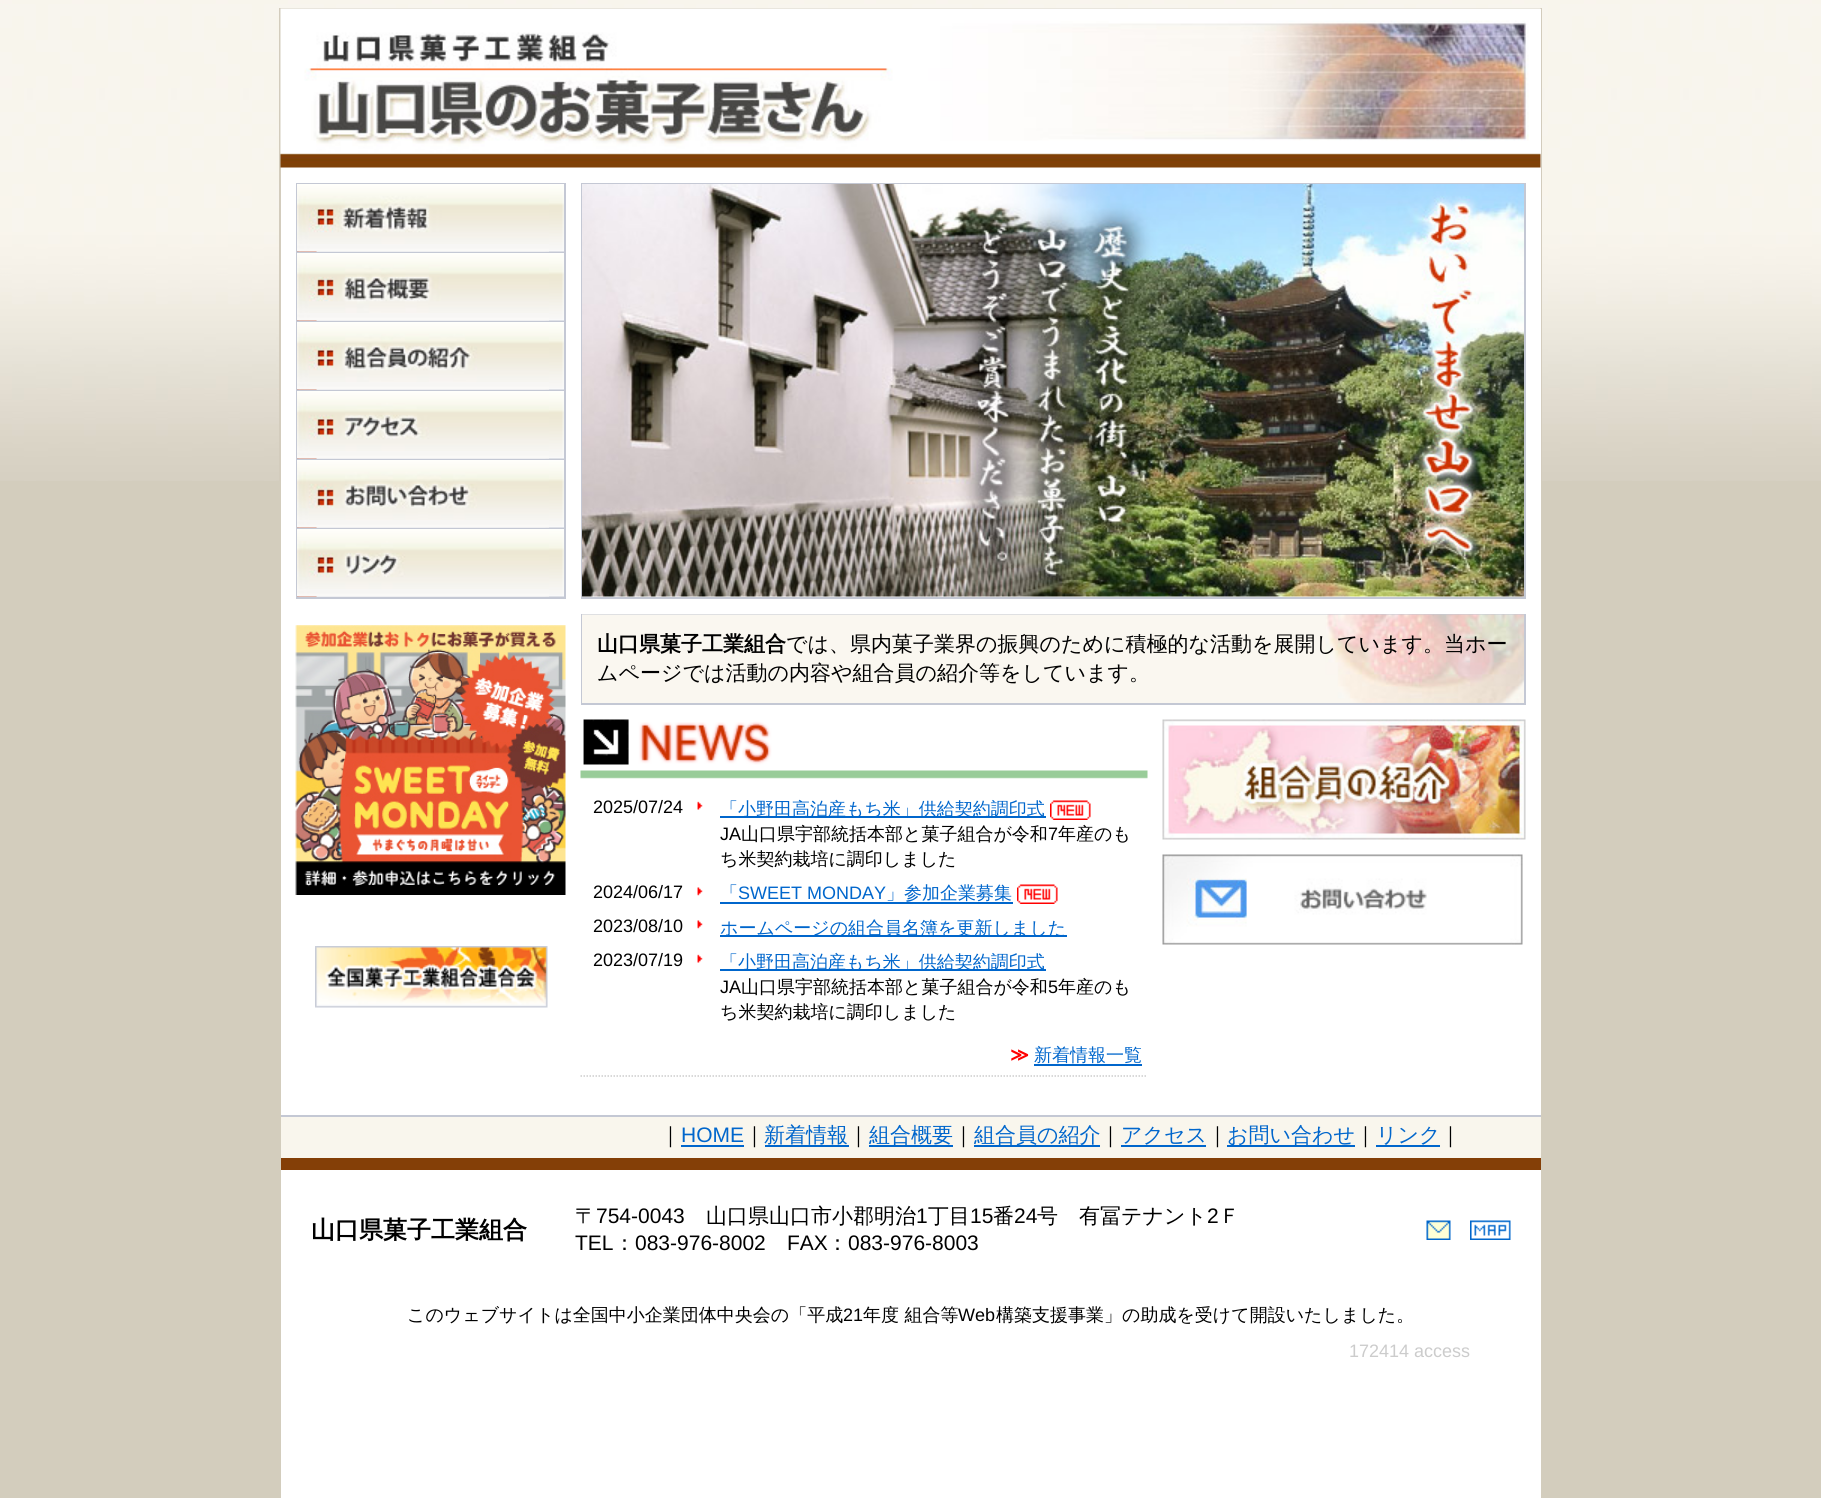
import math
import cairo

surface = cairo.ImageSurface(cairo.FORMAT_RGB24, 1821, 1498)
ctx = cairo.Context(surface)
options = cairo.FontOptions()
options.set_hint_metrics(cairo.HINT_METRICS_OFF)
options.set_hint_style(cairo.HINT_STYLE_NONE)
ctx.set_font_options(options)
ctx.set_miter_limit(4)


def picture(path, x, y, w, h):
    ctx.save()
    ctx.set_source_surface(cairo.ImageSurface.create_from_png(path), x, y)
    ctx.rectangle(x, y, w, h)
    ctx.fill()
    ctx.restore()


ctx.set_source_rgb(0.827, 0.804, 0.741)
ctx.paint()
picture("img1.png", 0, 0, 1821, 481)
ctx.set_source_rgb(0.827, 0.8, 0.741)
ctx.rectangle(279, 8, 1263, 473)
ctx.fill()
ctx.set_source_rgb(1, 1, 1)
ctx.rectangle(281, 9, 1260, 1489)
ctx.fill()
picture("img2.png", 280, 8, 1261, 160)
ctx.set_source_rgb(0.769, 0.784, 0.831)
ctx.rectangle(296, 183, 270, 416)
ctx.fill()
picture("img3.png", 297, 184, 267, 68)
picture("img4.png", 297, 184, 252, 68)
picture("img3.png", 297, 253, 267, 68)
picture("img5.png", 297, 253, 252, 68)
picture("img3.png", 297, 322, 267, 68)
picture("img6.png", 297, 322, 252, 68)
picture("img3.png", 297, 391, 267, 68)
picture("img7.png", 297, 391, 252, 68)
picture("img3.png", 297, 460, 267, 68)
picture("img8.png", 297, 460, 252, 68)
picture("img3.png", 297, 529, 267, 68)
picture("img9.png", 297, 529, 252, 68)
picture("img10.png", 295, 625, 271, 270)
picture("img11.png", 315, 946, 233, 62)
ctx.rectangle(581, 183, 945, 416)
ctx.fill()
ctx.set_source_rgb(1, 1, 1)
ctx.rectangle(582, 596, 942, 1)
ctx.fill()
picture("img12.png", 582, 184, 942, 413)
ctx.set_source_rgb(0.769, 0.784, 0.831)
ctx.rectangle(581, 614, 945, 91)
ctx.fill()
picture("img13.png", 582, 614, 942, 89)
ctx.select_font_face("WenQuanYi Zen Hei", cairo.FONT_SLANT_NORMAL, cairo.FONT_WEIGHT_BOLD)
ctx.set_font_size(21)
ctx.set_source_rgb(0, 0, 0)
ctx.move_to(597, 651)
ctx.show_text("山口県菓子工業組合")
ctx.select_font_face("WenQuanYi Zen Hei Medium")
ctx.move_to(786, 651)
ctx.show_text("では、県内菓子業界の振興のために積極的な活動を展開しています。当ホー")
ctx.move_to(597, 680)
ctx.show_text("ムページでは活動の内容や組合員の紹介等をしています。")
picture("img14.png", 580, 719, 568, 60)
ctx.select_font_face("Liberation Sans")
ctx.set_font_size(18)
ctx.move_to(593, 813)
ctx.show_text("2025/07/24")
picture("img15.png", 697, 801, 6, 9)
ctx.set_source_rgb(0, 0.4, 0.8)
ctx.rectangle(720, 816, 326, 2)
ctx.fill()
ctx.select_font_face("WenQuanYi Zen Hei Medium")
ctx.move_to(720, 815)
ctx.show_text("「小野田高泊産もち米」供給契約調印式")
picture("img16.png", 1050, 800, 41, 20)
ctx.select_font_face("Liberation Sans")
ctx.set_source_rgb(0, 0, 0)
ctx.move_to(720, 840)
ctx.show_text("JA")
ctx.select_font_face("WenQuanYi Zen Hei Medium")
ctx.move_to(741, 840)
ctx.show_text("山口県宇部統括本部と菓子組合が令和")
ctx.select_font_face("Liberation Sans")
ctx.move_to(1048, 840)
ctx.show_text("7")
ctx.select_font_face("WenQuanYi Zen Hei Medium")
ctx.move_to(1058, 840)
ctx.show_text("年産のも")
ctx.move_to(720, 865)
ctx.show_text("ち米契約栽培に調印しました")
ctx.select_font_face("Liberation Sans")
ctx.move_to(593, 898)
ctx.show_text("2024/06/17")
picture("img17.png", 697, 887, 6, 9)
ctx.select_font_face("WenQuanYi Zen Hei Medium")
ctx.set_source_rgb(0, 0.4, 0.8)
ctx.move_to(720, 899)
ctx.show_text("「")
ctx.select_font_face("Liberation Sans")
ctx.move_to(738, 899)
ctx.show_text("SWEET MONDAY")
ctx.rectangle(720, 902, 293, 2)
ctx.fill()
ctx.select_font_face("WenQuanYi Zen Hei Medium")
ctx.move_to(886, 899)
ctx.show_text("」参加企業募集")
picture("img18.png", 1017, 884, 41, 20)
ctx.select_font_face("Liberation Sans")
ctx.set_source_rgb(0, 0, 0)
ctx.move_to(593, 932)
ctx.show_text("2023/08/10")
picture("img17.png", 697, 920, 6, 9)
ctx.set_source_rgb(0, 0.4, 0.8)
ctx.rectangle(720, 935, 347, 2)
ctx.fill()
ctx.select_font_face("WenQuanYi Zen Hei Medium")
ctx.move_to(720, 934)
ctx.show_text("ホームページの組合員名簿を更新しました")
ctx.select_font_face("Liberation Sans")
ctx.set_source_rgb(0, 0, 0)
ctx.move_to(593, 966)
ctx.show_text("2023/07/19")
picture("img15.png", 697, 954, 6, 9)
ctx.set_source_rgb(0, 0.4, 0.8)
ctx.rectangle(720, 969, 326, 2)
ctx.fill()
ctx.select_font_face("WenQuanYi Zen Hei Medium")
ctx.move_to(720, 968)
ctx.show_text("「小野田高泊産もち米」供給契約調印式")
ctx.select_font_face("Liberation Sans")
ctx.set_source_rgb(0, 0, 0)
ctx.move_to(720, 993)
ctx.show_text("JA")
ctx.select_font_face("WenQuanYi Zen Hei Medium")
ctx.move_to(741, 993)
ctx.show_text("山口県宇部統括本部と菓子組合が令和")
ctx.select_font_face("Liberation Sans")
ctx.move_to(1048, 993)
ctx.show_text("5")
ctx.select_font_face("WenQuanYi Zen Hei Medium")
ctx.move_to(1058, 993)
ctx.show_text("年産のも")
ctx.move_to(720, 1018)
ctx.show_text("ち米契約栽培に調印しました")
ctx.new_path()
ctx.move_to(580.5, 1076)
ctx.line_to(1147.5, 1076)
ctx.set_source_rgb(0.8, 0.8, 0.8)
ctx.set_line_width(1.5)
ctx.set_dash([1.5, 1.5])
ctx.stroke()
ctx.select_font_face("DejaVu Sans", cairo.FONT_SLANT_NORMAL, cairo.FONT_WEIGHT_BOLD)
ctx.set_source_rgb(1, 0, 0)
ctx.move_to(1010, 1061)
ctx.show_text("≫")
ctx.select_font_face("WenQuanYi Zen Hei Medium")
ctx.set_source_rgb(0, 0.4, 0.8)
ctx.move_to(1034, 1061)
ctx.show_text("新着情報一覧")
ctx.rectangle(1034, 1064, 108, 2)
ctx.fill()
picture("img19.png", 1162, 719, 364, 121)
picture("img20.png", 1162, 854, 361, 91)
ctx.set_source_rgb(0.973, 0.961, 0.929)
ctx.rectangle(281, 1117, 1260, 41)
ctx.fill()
ctx.set_source_rgb(0.769, 0.784, 0.831)
ctx.rectangle(281, 1115, 1260, 2)
ctx.fill()
ctx.set_font_size(21)
ctx.set_source_rgb(0, 0, 0)
ctx.move_to(660, 1142)
ctx.show_text("｜")
ctx.select_font_face("Liberation Sans")
ctx.set_source_rgb(0, 0.4, 0.8)
ctx.move_to(681, 1142)
ctx.show_text("HOME")
ctx.rectangle(681, 1145, 63, 2)
ctx.fill()
ctx.select_font_face("WenQuanYi Zen Hei Medium")
ctx.set_source_rgb(0, 0, 0)
ctx.move_to(744, 1142)
ctx.show_text("｜")
ctx.set_source_rgb(0, 0.4, 0.8)
ctx.move_to(764, 1142)
ctx.show_text("新着情報")
ctx.rectangle(765, 1145, 84, 2)
ctx.fill()
ctx.set_source_rgb(0, 0, 0)
ctx.move_to(848, 1142)
ctx.show_text("｜")
ctx.set_source_rgb(0, 0.4, 0.8)
ctx.move_to(869, 1142)
ctx.show_text("組合概要")
ctx.rectangle(869, 1145, 84, 2)
ctx.fill()
ctx.set_source_rgb(0, 0, 0)
ctx.move_to(953, 1142)
ctx.show_text("｜")
ctx.set_source_rgb(0, 0.4, 0.8)
ctx.rectangle(974, 1145, 126, 2)
ctx.fill()
ctx.move_to(974, 1142)
ctx.show_text("組合員の紹介")
ctx.set_source_rgb(0, 0, 0)
ctx.move_to(1100, 1142)
ctx.show_text("｜")
ctx.set_source_rgb(0, 0.4, 0.8)
ctx.move_to(1121, 1142)
ctx.show_text("アクセス")
ctx.rectangle(1121, 1145, 85, 2)
ctx.fill()
ctx.set_source_rgb(0, 0, 0)
ctx.move_to(1207, 1142)
ctx.show_text("｜")
ctx.set_source_rgb(0, 0.4, 0.8)
ctx.rectangle(1227, 1145, 128, 2)
ctx.fill()
ctx.move_to(1227, 1142)
ctx.show_text("お問い合わせ")
ctx.set_source_rgb(0, 0, 0)
ctx.move_to(1355, 1142)
ctx.show_text("｜")
ctx.set_source_rgb(0, 0.4, 0.8)
ctx.move_to(1376, 1142)
ctx.show_text("リンク")
ctx.rectangle(1376, 1145, 64, 2)
ctx.fill()
ctx.set_source_rgb(0, 0, 0)
ctx.move_to(1440, 1142)
ctx.show_text("｜")
ctx.set_source_rgb(0.518, 0.247, 0.031)
ctx.rectangle(281, 1158, 1260, 12)
ctx.fill()
ctx.select_font_face("WenQuanYi Zen Hei", cairo.FONT_SLANT_NORMAL, cairo.FONT_WEIGHT_BOLD)
ctx.set_font_size(24)
ctx.set_source_rgb(0, 0, 0)
ctx.move_to(311, 1238)
ctx.show_text("山口県菓子工業組合")
ctx.select_font_face("WenQuanYi Zen Hei Medium")
ctx.set_font_size(21)
ctx.move_to(575, 1223)
ctx.show_text("〒")
ctx.select_font_face("Liberation Sans")
ctx.move_to(596, 1223)
ctx.show_text("754-0043")
ctx.select_font_face("WenQuanYi Zen Hei Medium")
ctx.move_to(706, 1223)
ctx.show_text("山口県山口市小郡明治")
ctx.select_font_face("Liberation Sans")
ctx.move_to(916, 1223)
ctx.show_text("1")
ctx.select_font_face("WenQuanYi Zen Hei Medium")
ctx.move_to(928, 1223)
ctx.show_text("丁目")
ctx.select_font_face("Liberation Sans")
ctx.move_to(970, 1223)
ctx.show_text("15")
ctx.select_font_face("WenQuanYi Zen Hei Medium")
ctx.move_to(993, 1223)
ctx.show_text("番")
ctx.select_font_face("Liberation Sans")
ctx.move_to(1014, 1223)
ctx.show_text("24")
ctx.select_font_face("WenQuanYi Zen Hei Medium")
ctx.move_to(1037, 1223)
ctx.show_text("号　有冨テナント")
ctx.select_font_face("Liberation Sans")
ctx.move_to(1207, 1223)
ctx.show_text("2")
ctx.select_font_face("WenQuanYi Zen Hei Medium")
ctx.move_to(1219, 1223)
ctx.show_text("Ｆ")
ctx.select_font_face("Liberation Sans")
ctx.move_to(575, 1250)
ctx.show_text("TEL")
ctx.select_font_face("WenQuanYi Zen Hei Medium")
ctx.move_to(614, 1250)
ctx.show_text("：")
ctx.select_font_face("Liberation Sans")
ctx.move_to(635, 1250)
ctx.show_text("083-976-8002")
ctx.move_to(787, 1250)
ctx.show_text("FAX")
ctx.select_font_face("WenQuanYi Zen Hei Medium")
ctx.move_to(827, 1250)
ctx.show_text("：")
ctx.select_font_face("Liberation Sans")
ctx.move_to(848, 1250)
ctx.show_text("083-976-8003")
picture("img21.png", 1426, 1220, 25, 20)
picture("img22.png", 1470, 1220, 41, 20)
ctx.select_font_face("WenQuanYi Zen Hei Medium")
ctx.set_font_size(18)
ctx.move_to(407, 1321)
ctx.show_text("このウェブサイトは全国中小企業団体中央会の「平成")
ctx.select_font_face("Liberation Sans")
ctx.move_to(843, 1321)
ctx.show_text("21")
ctx.select_font_face("WenQuanYi Zen Hei Medium")
ctx.move_to(863, 1321)
ctx.show_text("年度 組合等")
ctx.select_font_face("Liberation Sans")
ctx.move_to(958, 1321)
ctx.show_text("Web")
ctx.select_font_face("WenQuanYi Zen Hei Medium")
ctx.move_to(996, 1321)
ctx.show_text("構築支援事業」の助成を受けて開設いたしました。")
ctx.select_font_face("Liberation Sans")
ctx.set_source_rgb(0.8, 0.8, 0.8)
ctx.move_to(1349, 1357)
ctx.show_text("172414 access")
surface.write_to_png("page.png")
